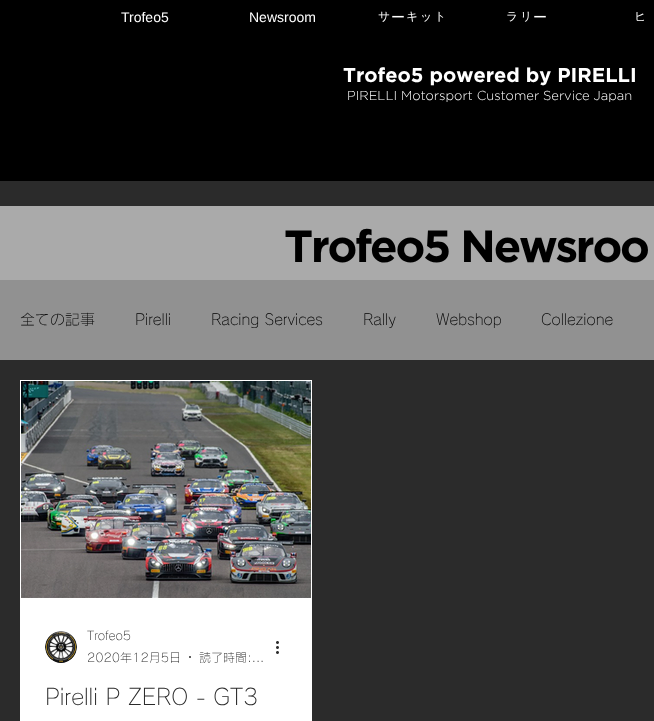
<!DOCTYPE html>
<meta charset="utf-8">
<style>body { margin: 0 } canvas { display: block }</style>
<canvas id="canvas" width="654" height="721"></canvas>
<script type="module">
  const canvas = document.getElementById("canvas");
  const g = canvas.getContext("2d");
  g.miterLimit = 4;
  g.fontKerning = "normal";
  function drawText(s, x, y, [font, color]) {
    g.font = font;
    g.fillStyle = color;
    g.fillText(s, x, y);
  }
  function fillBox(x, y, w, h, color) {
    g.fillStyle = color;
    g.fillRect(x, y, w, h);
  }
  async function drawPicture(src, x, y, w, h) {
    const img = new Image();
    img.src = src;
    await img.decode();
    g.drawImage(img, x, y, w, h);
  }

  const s1 = ["14px Liberation Sans", "#FFFFFF"];
  const s2 = ["14px Dotum", "#FFFFFF"];
  const s3 = ["500 14px WenQuanYi Zen Hei", "#FFFFFF"];
  const s4 = ["bold 20px Gotham", "#FFFFFF"];
  const s5 = ["300 13px Gotham", "#FFFFFF"];
  const s6 = ["bold 45px Gotham", "#000000"];
  const s7 = ["300 15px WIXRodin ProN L", "#000000"];
  const s8 = ["300 12px WIXRodin ProN L", "#2B2B2B"];
  const s9 = ["300 22px WIXRodin ProN L", "#2B2B2B"];

  fillBox(0, 0, 654, 721, "#AAAAAA");
  fillBox(0, 0, 654, 181, "#000000");
  drawText("Trofeo5", 121, 22, s1);
  drawText("Newsroom", 249, 22, s1);
  drawText("サ", 377, 22, s2);
  drawText("ー", 391, 22, s3);
  drawText("キット", 405, 22, s2);
  drawText("ラリ", 505, 22, s2);
  drawText("ー", 533, 22, s3);
  drawText("ヒ", 633, 22, s2);
  drawText("Trofeo5 powered by PIRELLI", 343, 82, s4);
  drawText("PIRELLI Motorsport Customer Service Japan", 347, 100, s5);
  fillBox(0, 181, 654, 25, "#2B2B2B");
  g.letterSpacing = "-2.25px";
  drawText("Trofeo5 Newsroo", 284, 262, s6);
  fillBox(0, 360, 654, 361, "#2B2B2B");
  fillBox(0, 280, 654, 80, "#919191");
  g.letterSpacing = "0px";
  drawText("全ての記事", 20, 325, s7);
  drawText("Pirelli", 135, 325, s7);
  drawText("Racing Services", 211, 325, s7);
  drawText("Rally", 363, 325, s7);
  drawText("Webshop", 436, 325, s7);
  drawText("Collezione", 541, 325, s7);
  g.strokeStyle = "#FFFFFF";
  g.strokeRect(20.5, 380.5, 291, 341);
  await drawPicture("pic1.png", 21, 381, 290, 217);
  fillBox(21, 598, 290, 123, "#FFFFFF");
  await drawPicture("pic2.png", 45, 631, 32, 32);
  drawText("Trofeo5", 87, 640, s8);
  drawText("2020年12月5日", 87, 662, s8);
  g.beginPath();
  g.arc(190, 657, 1, 0, Math.PI * 2);
  g.fill();
  drawText("読了時間:...", 199, 662, s8);
  await drawPicture("pic3.png", 276, 641, 3, 13);
  drawText("Pirelli P ZERO - GT3", 45, 705, s9);
</script>
